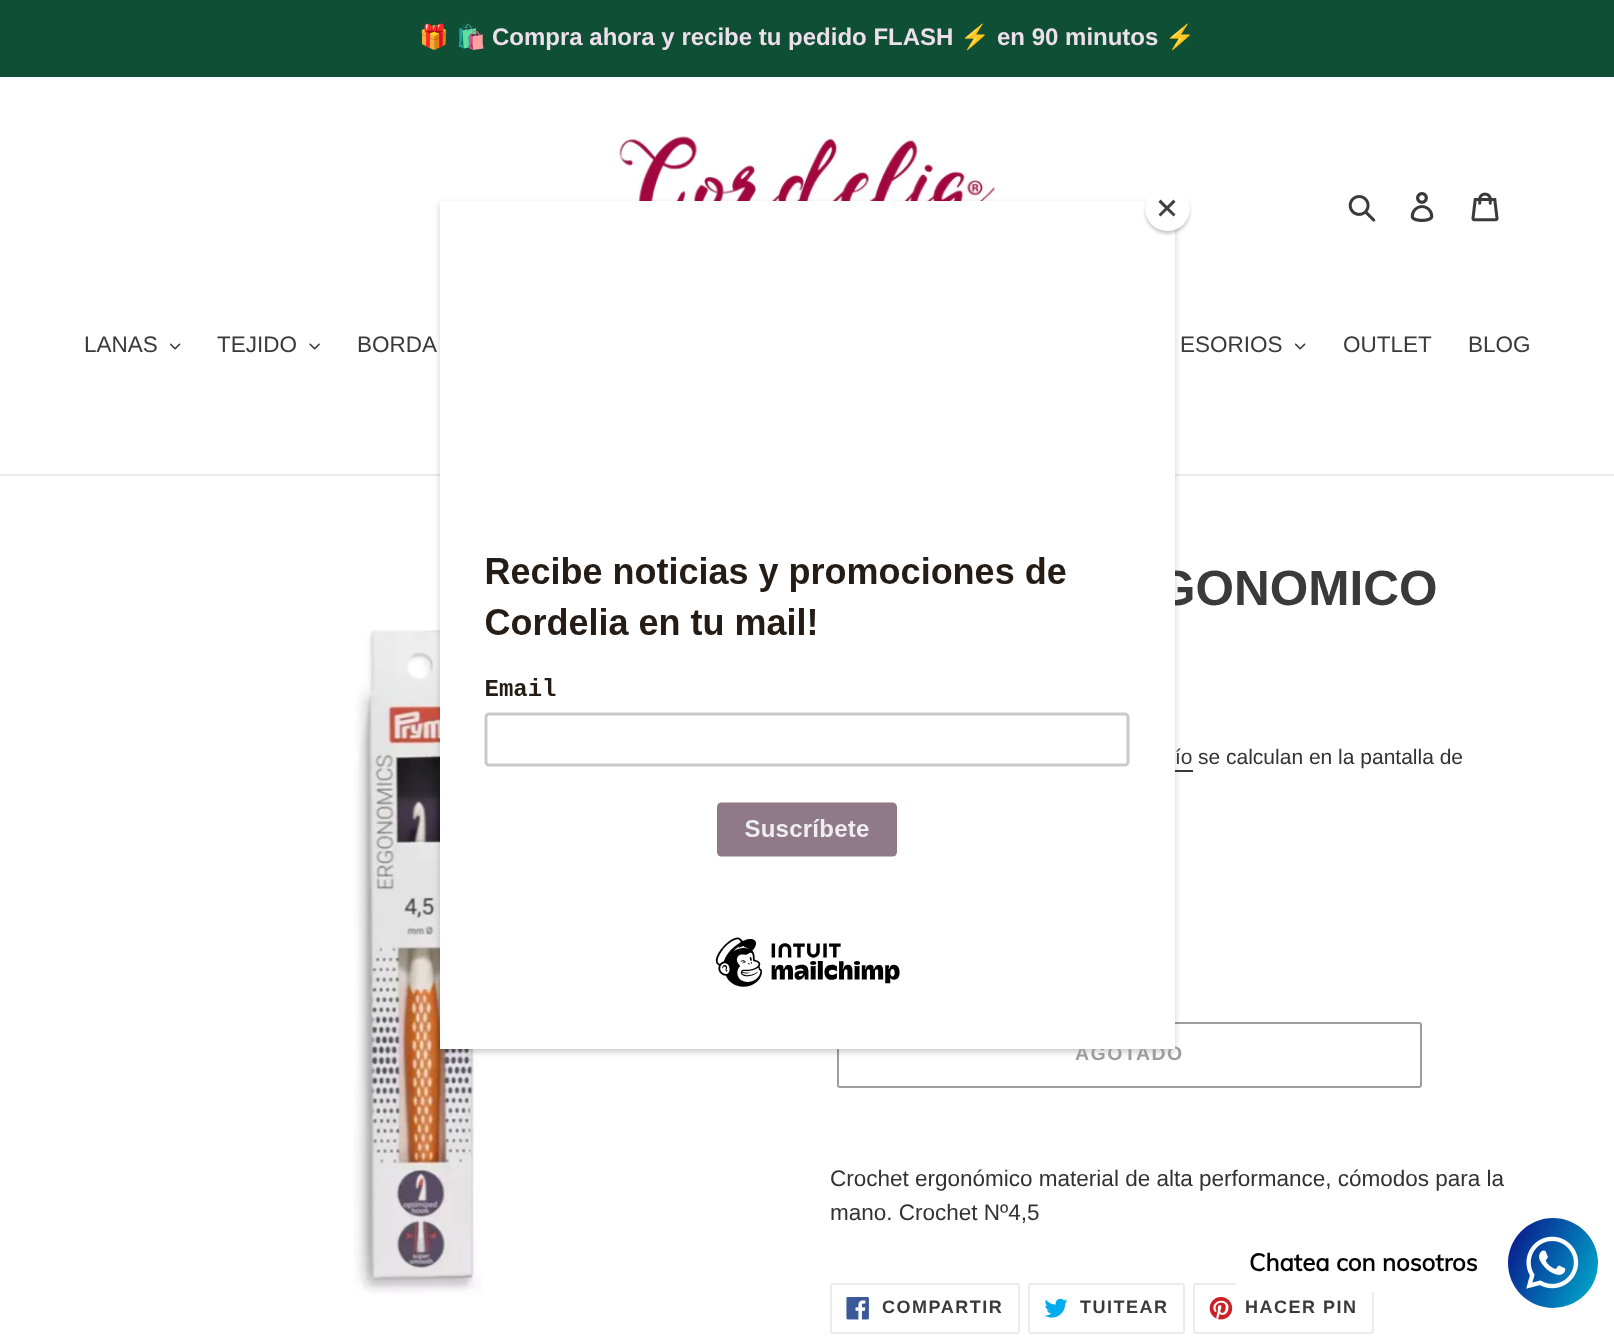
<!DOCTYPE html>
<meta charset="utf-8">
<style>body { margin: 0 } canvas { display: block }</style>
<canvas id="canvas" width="1614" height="1338"></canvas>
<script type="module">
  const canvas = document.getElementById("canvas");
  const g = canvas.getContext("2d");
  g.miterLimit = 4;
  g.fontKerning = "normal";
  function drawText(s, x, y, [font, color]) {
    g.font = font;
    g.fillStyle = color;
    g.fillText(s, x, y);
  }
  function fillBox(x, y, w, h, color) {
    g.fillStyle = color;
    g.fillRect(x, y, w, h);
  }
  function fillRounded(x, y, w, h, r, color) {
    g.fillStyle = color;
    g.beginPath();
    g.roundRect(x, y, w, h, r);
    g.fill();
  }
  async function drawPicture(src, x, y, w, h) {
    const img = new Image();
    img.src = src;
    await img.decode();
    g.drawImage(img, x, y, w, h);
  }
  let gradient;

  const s1 = ["bold 24px Noto Color Emoji", "#EDE0EA"];
  const s2 = ["bold 24px Liberation Sans", "#EDE0EA"];
  const s3 = ["22.5px Liberation Sans", "#3A3A3A"];
  const s4 = ["bold 49.5px Liberation Sans", "#3A3A3A"];
  const s5 = ["bold 19.5px Liberation Sans", "#9D9D9D"];
  const s6 = ["21px Liberation Sans", "#3A3A3A"];
  const s7 = ["21px Liberation Sans", "#333232"];
  const s8 = ["22.5px Liberation Sans", "#333232"];
  const s9 = ["bold 18px Liberation Sans", "#3A3A3A"];
  const s10 = ["bold 24px Muli", "#000000"];

  fillBox(0, 0, 1614, 1338, "#FFFFFF");
  fillBox(0, 0, 1614, 77, "#0E4F36");
  drawText("🎁", 419, 45, s1);
  drawText("🛍️", 456, 45, s1);
  drawText("Compra ahora y recibe tu pedido FLASH", 492, 45, s2);
  drawText("⚡️", 960, 45, s1);
  drawText("en 90 minutos", 997, 45, s2);
  drawText("⚡️", 1165, 45, s1);
  await drawPicture("pic1.png", 619, 136, 376, 65);
  await drawPicture("pic2.png", 1348, 195, 28, 27);
  await drawPicture("pic3.png", 1410, 192, 24, 30);
  await drawPicture("pic4.png", 1471, 192, 28, 30);
  fillBox(0, 474, 1614, 2, "#EBEBEB");
  drawText("LANAS", 84, 352, s3);
  await drawPicture("pic5.png", 170, 343, 11, 7);
  drawText("TEJIDO", 217, 352, s3);
  await drawPicture("pic6.png", 309, 343, 11, 7);
  drawText("BORDA", 357, 352, s3);
  drawText("ESORIOS", 1180, 352, s3);
  await drawPicture("pic5.png", 1295, 343, 11, 7);
  drawText("OUTLET", 1343, 352, s3);
  drawText("BLOG", 1468, 352, s3);
  await drawPicture("pic8.png", 353, 629, 129, 666);
  fillBox(1175, 770, 18, 2, "#3A3A3A");
  g.beginPath();
  g.roundRect(838, 1023, 583, 64, 2);
  g.strokeStyle = "#9D9D9D";
  g.lineWidth = 2;
  g.stroke();
  g.fillStyle = "rgba(0, 0, 0, 0.2)";
  g.filter = "blur(3px)";
  g.beginPath();
  g.rect(440, 204, 735, 848);
  g.fill();
  g.filter = "none";
  drawText("GONOMICO", 1157, 605, s4);
  g.letterSpacing = "1.5px";
  drawText("AGOTADO", 1075, 1060, s5);
  await drawPicture("pic7.png", 440, 201, 735, 848);
  g.fillStyle = "rgba(0, 0, 0, 0.2)";
  g.filter = "blur(1.5px)";
  g.beginPath();
  g.roundRect(1145, 189, 45, 45, 22.5);
  g.fill();
  g.filter = "none";
  g.fillStyle = "#FFFFFF";
  g.beginPath();
  g.arc(1167.5, 208.5, 22.5, 0, Math.PI * 2);
  g.fill();
  g.fillStyle = "#414141";
  g.beginPath();
  g.moveTo(1173.5, 199.5);
  g.lineTo(1175.5, 202);
  g.lineTo(1160.5, 216.5);
  g.lineTo(1158.5, 214.5);
  g.closePath();
  g.fill();
  g.beginPath();
  g.moveTo(1158.5, 202);
  g.lineTo(1160.5, 199.5);
  g.lineTo(1175.5, 214.5);
  g.lineTo(1173.5, 216.5);
  g.closePath();
  g.fill();
  g.letterSpacing = "0px";
  drawText("ío", 1175, 764, s6);
  drawText("se calculan en la pantalla de", 1198, 764, s7);
  drawText("Crochet ergonómico material de alta performance, cómodos para la", 830, 1186, s8);
  drawText("mano. Crochet Nº4,5", 830, 1220, s8);
  g.beginPath();
  g.roundRect(831, 1284, 188, 49, 2);
  g.strokeStyle = "#EBEBEB";
  g.stroke();
  await drawPicture("pic9.png", 846, 1297, 23, 23);
  g.letterSpacing = "1.5px";
  drawText("COMPARTIR", 882, 1313, s9);
  g.beginPath();
  g.roundRect(1029, 1284, 155, 49, 2);
  g.stroke();
  await drawPicture("pic10.png", 1044, 1298, 24, 20);
  drawText("TUITEAR", 1080, 1313, s9);
  g.beginPath();
  g.roundRect(1194, 1284, 179, 49, 2);
  g.stroke();
  await drawPicture("pic11.png", 1209, 1297, 24, 23);
  drawText("HACER PIN", 1245, 1313, s9);
  gradient = g.createLinearGradient(1498, 1238, 1607, 1288);
  gradient.addColorStop(0, "#0A0E88");
  gradient.addColorStop(1, "#00B1CE");
  g.fillStyle = gradient;
  g.beginPath();
  g.arc(1553, 1263, 45, 0, Math.PI * 2);
  g.fill();
  fillRounded(1235, 1233, 258, 59, 12, "#FFFFFF");
  g.letterSpacing = "0px";
  drawText("Chatea con nosotros", 1249, 1271, s10);
  await drawPicture("pic12.png", 1526, 1236, 53, 53);
</script>
